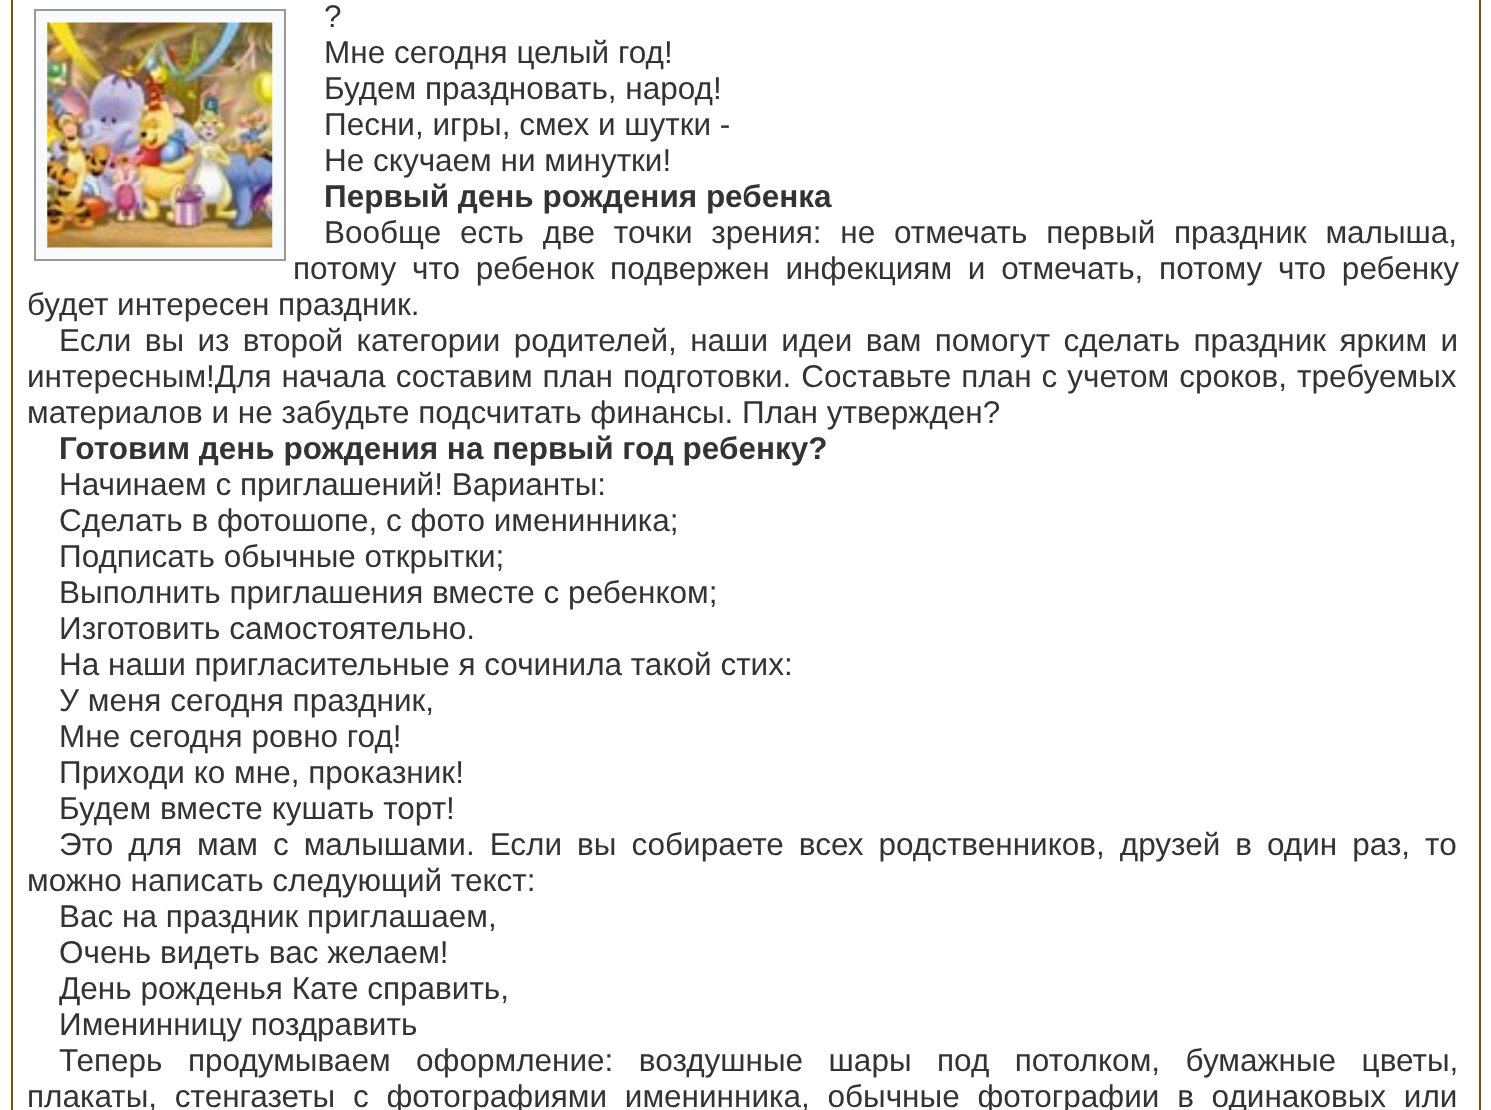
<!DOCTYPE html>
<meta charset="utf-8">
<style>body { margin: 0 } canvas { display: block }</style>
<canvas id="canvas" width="1491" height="1110"></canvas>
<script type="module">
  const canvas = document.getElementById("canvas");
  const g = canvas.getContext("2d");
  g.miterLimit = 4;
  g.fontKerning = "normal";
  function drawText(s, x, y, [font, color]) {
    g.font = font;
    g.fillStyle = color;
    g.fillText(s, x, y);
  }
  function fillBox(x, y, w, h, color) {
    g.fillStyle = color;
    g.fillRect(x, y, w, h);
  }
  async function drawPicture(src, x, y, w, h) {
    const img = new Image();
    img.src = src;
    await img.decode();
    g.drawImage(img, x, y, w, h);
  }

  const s1 = ["31.5px Liberation Sans", "#333333"];
  const s2 = ["bold 31.5px Liberation Sans", "#333333"];

  fillBox(0, 0, 1491, 1110, "#FFFFFF");
  g.strokeStyle = "#884F08";
  g.lineWidth = 2;
  g.strokeRect(12, -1, 1468, 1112);
  g.fillStyle = "#F8FAFC";
  g.beginPath();
  g.rect(35, 10, 250, 250);
  g.fill();
  g.strokeStyle = "#999999";
  g.stroke();
  await drawPicture("pic1.png", 47, 22, 226, 226);
  drawText("?", 324, 27, s1);
  drawText("Мне сегодня целый год!", 324, 63, s1);
  drawText("Будем праздновать, народ!", 324, 99, s1);
  drawText("Песни, игры, смех и шутки -", 324, 135, s1);
  drawText("Не скучаем ни минутки!", 324, 171, s1);
  drawText("Первый день рождения ребенка", 324, 207, s2);
  g.wordSpacing = "10px";
  drawText("Вообще есть две точки зрения: не отмечать первый праздник малыша,", 324, 243, s1);
  g.wordSpacing = "7px";
  drawText("потому что ребенок подвержен инфекциям и отмечать, потому что ребенку", 293, 279, s1);
  g.wordSpacing = "0px";
  drawText("будет интересен праздник.", 27, 315, s1);
  g.wordSpacing = "4.6px";
  drawText("Если вы из второй категории родителей, наши идеи вам помогут сделать праздник ярким и", 59, 351, s1);
  g.wordSpacing = "1.25px";
  drawText("интересным!Для начала составим план подготовки. Составьте план с учетом сроков, требуемых", 27, 387, s1);
  g.wordSpacing = "0px";
  drawText("материалов и не забудьте подсчитать финансы. План утвержден?", 27, 423, s1);
  drawText("Готовим день рождения на первый год ребенку?", 59, 459, s2);
  drawText("Начинаем с приглашений! Варианты:", 59, 495, s1);
  drawText("Сделать в фотошопе, с фото именинника;", 59, 531, s1);
  drawText("Подписать обычные открытки;", 59, 567, s1);
  drawText("Выполнить приглашения вместе с ребенком;", 59, 603, s1);
  drawText("Изготовить самостоятельно.", 59, 639, s1);
  drawText("На наши пригласительные я сочинила такой стих:", 59, 675, s1);
  drawText("У меня сегодня праздник,", 59, 711, s1);
  drawText("Мне сегодня ровно год!", 59, 747, s1);
  drawText("Приходи ко мне, проказник!", 59, 783, s1);
  drawText("Будем вместе кушать торт!", 59, 819, s1);
  g.wordSpacing = "6.25px";
  drawText("Это для мам с малышами. Если вы собираете всех родственников, друзей в один раз, то", 59, 855, s1);
  g.wordSpacing = "0px";
  drawText("можно написать следующий текст:", 27, 891, s1);
  drawText("Вас на праздник приглашаем,", 59, 927, s1);
  drawText("Очень видеть вас желаем!", 59, 963, s1);
  drawText("День рожденья Кате справить,", 59, 999, s1);
  drawText("Именинницу поздравить", 59, 1035, s1);
  g.wordSpacing = "16.75px";
  drawText("Теперь продумываем оформление: воздушные шары под потолком, бумажные цветы,", 59, 1071, s1);
  g.wordSpacing = "9px";
  drawText("плакаты, стенгазеты с фотографиями именинника, обычные фотографии в одинаковых или", 27, 1107, s1);
</script>
